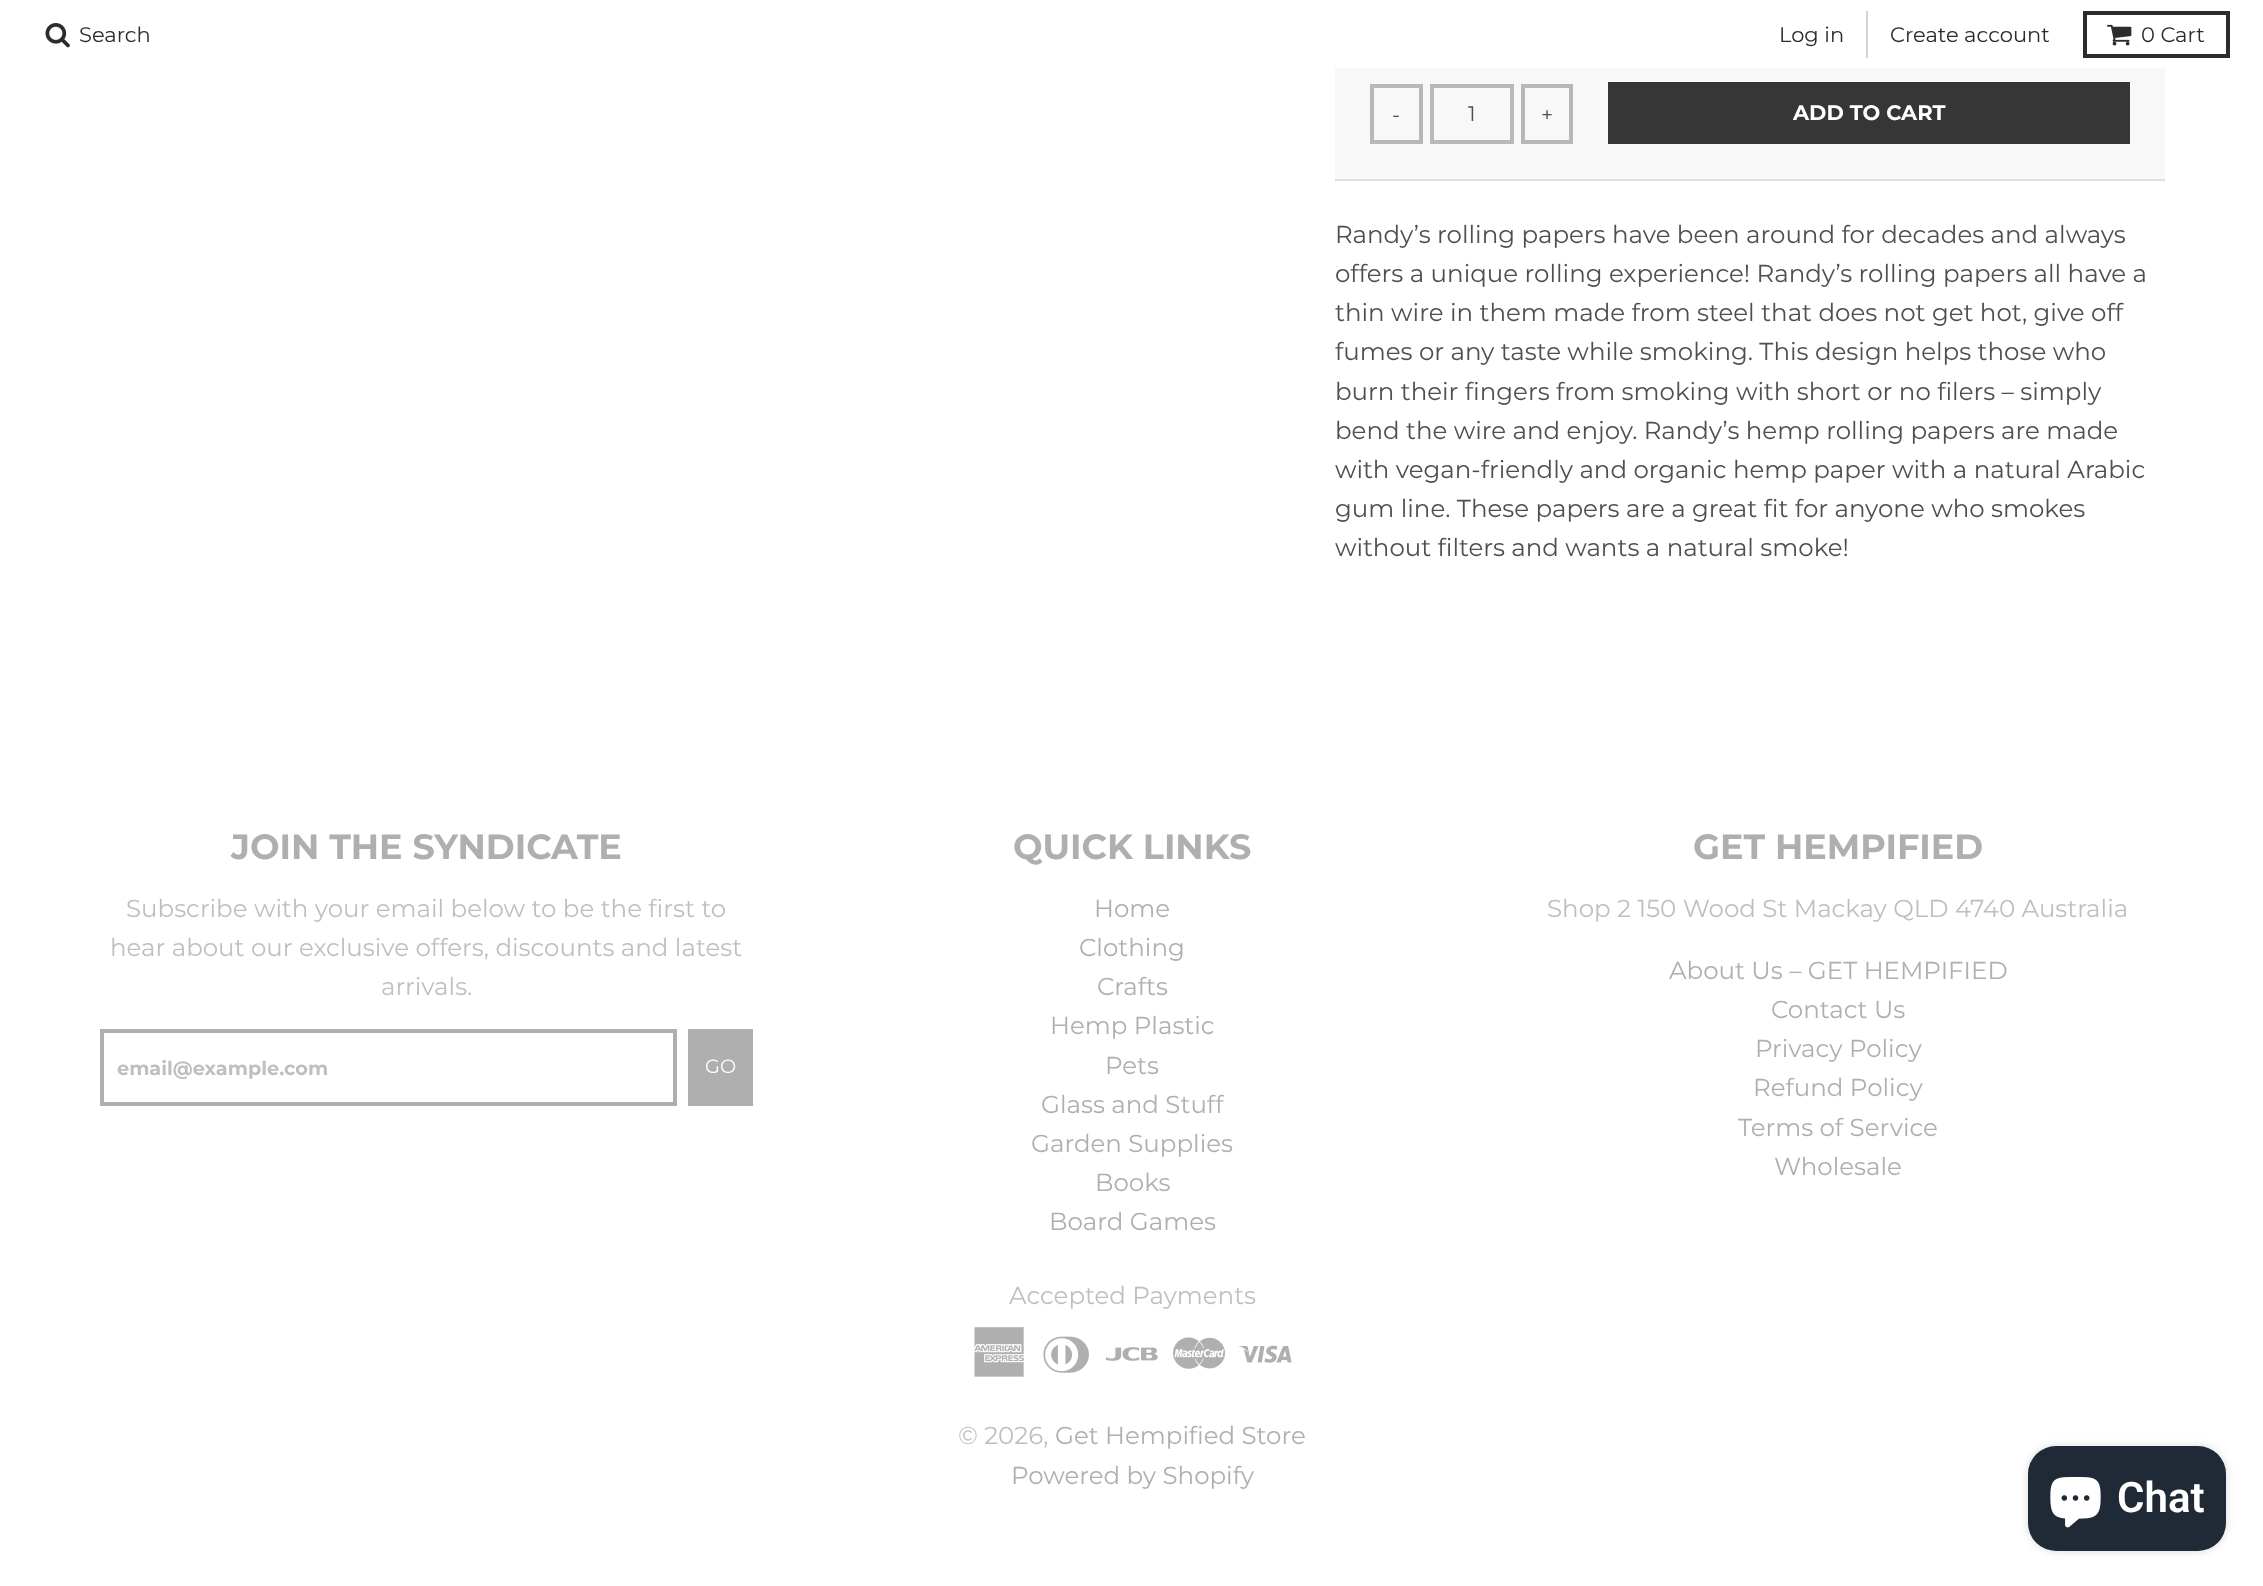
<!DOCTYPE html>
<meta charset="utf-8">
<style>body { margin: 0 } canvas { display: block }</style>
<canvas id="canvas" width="2263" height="1586"></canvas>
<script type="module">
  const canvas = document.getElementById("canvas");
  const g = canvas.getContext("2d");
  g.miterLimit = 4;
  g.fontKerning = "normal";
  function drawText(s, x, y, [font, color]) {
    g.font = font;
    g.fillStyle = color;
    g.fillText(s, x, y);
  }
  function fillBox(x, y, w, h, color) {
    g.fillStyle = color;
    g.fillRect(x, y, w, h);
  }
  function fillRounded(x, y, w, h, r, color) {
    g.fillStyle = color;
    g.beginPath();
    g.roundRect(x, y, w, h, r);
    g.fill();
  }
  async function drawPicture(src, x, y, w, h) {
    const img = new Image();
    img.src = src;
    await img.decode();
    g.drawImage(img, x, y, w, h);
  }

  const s1 = ["21px Montserrat", "#2C2C2C"];
  const s2 = ["21px Montserrat", "#4F4F4F"];
  const s3 = ["bold 21px Montserrat", "#FFFFFF"];
  const s4 = ["24.5px Montserrat", "#4F4F4F"];
  const s5 = ["bold 35px Montserrat", "#AFAFAF"];
  const s6 = ["24.5px Montserrat", "#BFBFBF"];
  const s7 = ["bold 19.25px Montserrat", "#BFBFBF"];
  const s8 = ["19.25px Montserrat", "#FFFFFF"];
  const s9 = ["24.5px Montserrat", "#AFAFAF"];
  const s10 = ["600 42px Roboto", "#FFFFFF"];

  fillBox(0, 0, 2263, 1586, "#FFFFFF");
  await drawPicture("pic1.png", 45, 23, 25, 25);
  drawText("Search", 79, 42, s1);
  fillBox(1866, 11, 2, 47, "#D4D4D4");
  drawText("Log in", 1779, 42, s1);
  drawText("Create account", 1890, 42, s1);
  g.strokeStyle = "#2C2C2C";
  g.lineWidth = 4;
  g.strokeRect(2085, 13, 143, 43);
  await drawPicture("pic2.png", 2107, 24, 25, 22);
  drawText("0 Cart", 2141, 42, s1);
  fillBox(1335, 68, 830, 111, "#F8F8F8");
  fillBox(1335, 179, 830, 2, "#DFDFDF");
  g.strokeStyle = "#B8B8B8";
  g.strokeRect(1372, 86, 49, 56);
  drawText("-", 1392, 122, s2);
  g.strokeRect(1432, 86, 80, 56);
  drawText("1", 1468, 121, s2);
  g.strokeRect(1523, 86, 48, 56);
  drawText("+", 1541, 122, s2);
  fillBox(1608, 82, 522, 62, "#363636");
  drawText("ADD TO CART", 1793, 120, s3);
  drawText("Randy’s rolling papers have been around for decades and always", 1335, 243, s4);
  drawText("offers a unique rolling experience! Randy’s rolling papers all have a", 1335, 282, s4);
  drawText("thin wire in them made from steel that does not get hot, give off", 1335, 321, s4);
  drawText("fumes or any taste while smoking. This design helps those who", 1335, 360, s4);
  drawText("burn their fingers from smoking with short or no filers – simply", 1335, 400, s4);
  drawText("bend the wire and enjoy. Randy’s hemp rolling papers are made", 1335, 439, s4);
  drawText("with vegan-friendly and organic hemp paper with a natural Arabic", 1335, 478, s4);
  drawText("gum line. These papers are a great fit for anyone who smokes", 1335, 517, s4);
  drawText("without filters and wants a natural smoke!", 1335, 556, s4);
  drawText("JOIN THE SYNDICATE", 231, 859, s5);
  drawText("Subscribe with your email below to be the first to", 126, 917, s6);
  drawText("hear about our exclusive offers, discounts and latest", 110, 956, s6);
  drawText("arrivals.", 381, 995, s6);
  g.strokeStyle = "#AFAFAF";
  g.strokeRect(102, 1031, 573, 73);
  drawText("email@example.com", 117, 1075, s7);
  fillBox(688, 1029, 65, 77, "#AFAFAF");
  drawText("GO", 705, 1073, s8);
  drawText("QUICK LINKS", 1013, 859, s5);
  drawText("Home", 1094, 917, s9);
  drawText("Clothing", 1079, 956, s9);
  drawText("Crafts", 1097, 995, s9);
  drawText("Hemp Plastic", 1050, 1034, s9);
  drawText("Pets", 1105, 1074, s9);
  drawText("Glass and Stuff", 1041, 1113, s9);
  drawText("Garden Supplies", 1031, 1152, s9);
  drawText("Books", 1095, 1191, s9);
  drawText("Board Games", 1049, 1230, s9);
  drawText("GET HEMPIFIED", 1693, 859, s5);
  drawText("Shop 2 150 Wood St Mackay QLD 4740 Australia", 1547, 917, s6);
  drawText("About Us – GET HEMPIFIED", 1669, 979, s9);
  drawText("Contact Us", 1771, 1018, s9);
  drawText("Privacy Policy", 1755, 1057, s9);
  drawText("Refund Policy", 1753, 1096, s9);
  drawText("Terms of Service", 1738, 1136, s9);
  drawText("Wholesale", 1774, 1175, s9);
  drawText("Accepted Payments", 1009, 1304, s6);
  await drawPicture("pic3.png", 974, 1327, 50, 50);
  await drawPicture("pic4.png", 1043, 1336, 46, 37);
  await drawPicture("pic5.png", 1106, 1347, 52, 14);
  await drawPicture("pic6.png", 1173, 1337, 52, 32);
  await drawPicture("pic7.png", 1239, 1345, 53, 18);
  drawText("© 2026,", 958, 1444, s6);
  drawText("Get Hempified Store", 1055, 1444, s9);
  drawText("Powered by Shopify", 1011, 1484, s9);
  g.fillStyle = "rgba(0, 0, 0, 0.15)";
  g.filter = "blur(4.5px)";
  g.beginPath();
  g.roundRect(2028, 1446, 198, 105, 28);
  g.fill();
  g.filter = "none";
  fillRounded(2028, 1446, 198, 105, 28, "#202A36");
  await drawPicture("pic8.png", 2050, 1477, 51, 51);
  drawText("Chat", 2117, 1512, s10);
</script>
